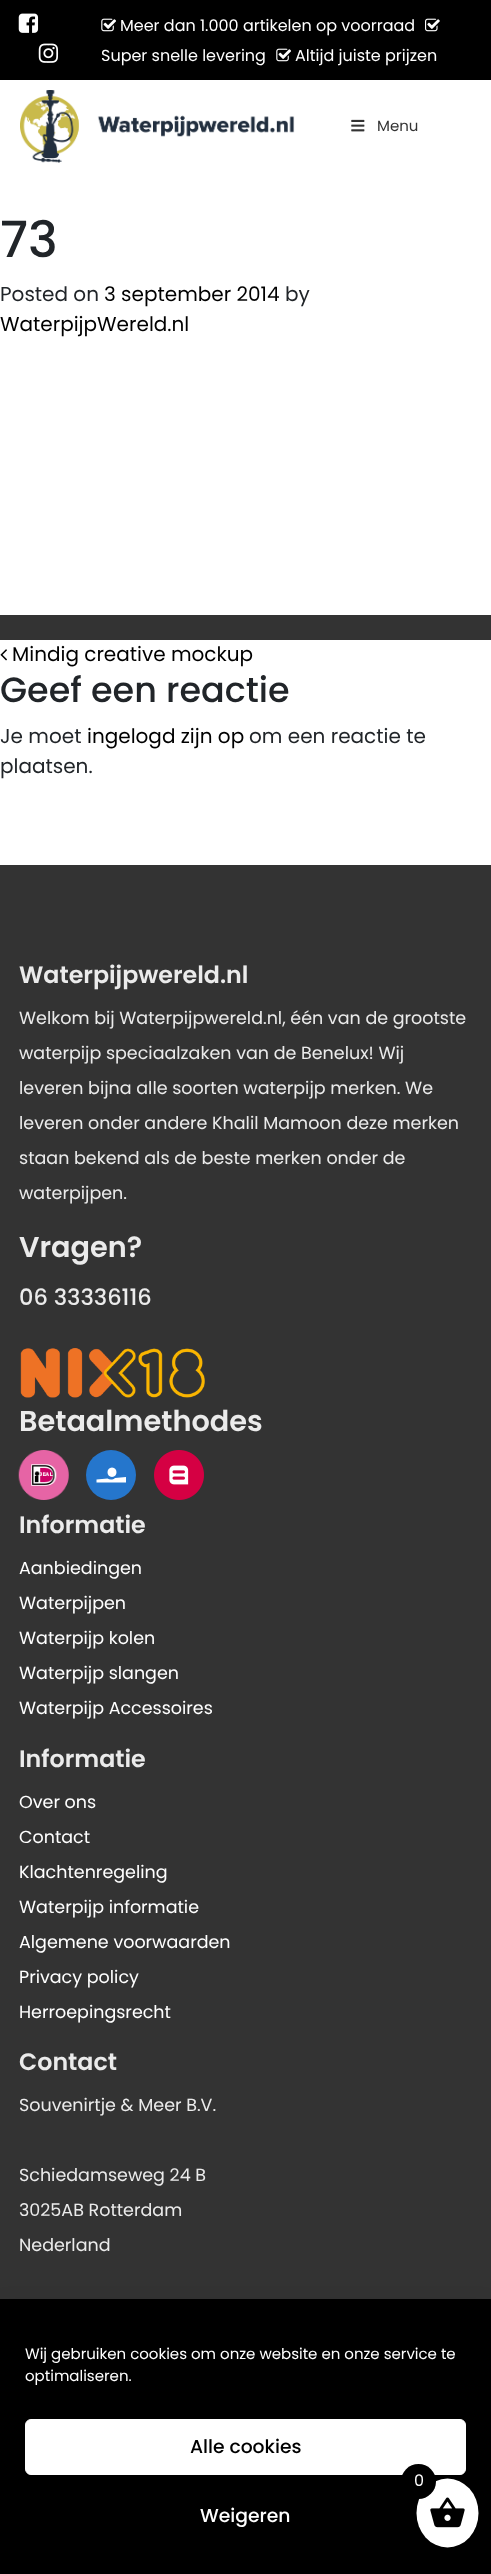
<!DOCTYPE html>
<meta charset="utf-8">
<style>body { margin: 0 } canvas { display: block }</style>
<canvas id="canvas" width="491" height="2574"></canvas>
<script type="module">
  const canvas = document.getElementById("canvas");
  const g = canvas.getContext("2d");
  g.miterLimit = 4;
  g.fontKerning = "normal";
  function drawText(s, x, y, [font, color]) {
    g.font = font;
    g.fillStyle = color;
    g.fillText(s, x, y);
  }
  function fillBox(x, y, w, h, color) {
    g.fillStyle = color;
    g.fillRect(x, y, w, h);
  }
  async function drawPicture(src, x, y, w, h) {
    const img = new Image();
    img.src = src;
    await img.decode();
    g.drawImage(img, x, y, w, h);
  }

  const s1 = ["16px Poppins", "#FFFFFF"];
  const s2 = ["15px Poppins", "#333333"];
  const s3 = ["500 50px Poppins", "#212529"];
  const s4 = ["20px Poppins", "#212529"];
  const s5 = ["20px Poppins", "#000000"];
  const s6 = ["500 35px Poppins", "#212529"];
  const s7 = ["600 23.75px Poppins", "#EBEBEB"];
  const s8 = ["17.5px Poppins", "#EBEBEB"];
  const s9 = ["600 28.75px Poppins", "#EBEBEB"];
  const s10 = ["500 22.5px Poppins", "#EBEBEB"];
  const s11 = ["17.5px Poppins", "#FFFFFF"];
  const s12 = ["15px Poppins", "#FFFFFF"];
  const s13 = ["500 18.75px Poppins", "#000000"];
  const s14 = ["500 18.75px Poppins", "#FFFFFF"];

  fillBox(0, 0, 491, 2574, "#FFFFFF");
  fillBox(0, 0, 491, 80, "#000000");
  await drawPicture("pic1.png", 18, 13, 21, 20);
  await drawPicture("pic2.png", 38, 43, 21, 20);
  await drawPicture("pic3.png", 101, 18, 15, 14);
  drawText("Meer dan 1.000 artikelen op voorraad", 120, 31, s1);
  await drawPicture("pic4.png", 425, 18, 15, 14);
  drawText("Super snelle levering", 101, 61, s1);
  await drawPicture("pic3.png", 276, 48, 15, 14);
  drawText("Altijd juiste prijzen", 295, 61, s1);
  await drawPicture("pic5.png", 20, 90, 275, 73);
  await drawPicture("pic6.png", 351, 119, 14, 13);
  drawText("Menu", 377, 131, s2);
  drawText("73", 0, 257, s3);
  drawText("Posted on", 0, 301, s4);
  drawText("3 september 2014", 104, 301, s5);
  drawText("by", 285, 301, s4);
  drawText("WaterpijpWereld.nl", 0, 331, s5);
  fillBox(0, 615, 491, 25, "#333333");
  await drawPicture("pic7.png", 0, 649, 7, 12);
  drawText("Mindig creative mockup", 12, 661, s5);
  drawText("Geef een reactie", 0, 702, s6);
  drawText("Je moet", 0, 743, s4);
  drawText("ingelogd zijn op", 87, 743, s5);
  drawText("om een reactie te", 249, 743, s4);
  drawText("plaatsen.", 0, 773, s4);
  fillBox(0, 865, 491, 1434, "#333333");
  drawText("Waterpijpwereld.nl", 19, 983, s7);
  drawText("Welkom bij Waterpijpwereld.nl, één van de grootste", 19, 1024, s8);
  drawText("waterpijp speciaalzaken van de Benelux! Wij", 19, 1059, s8);
  drawText("leveren bijna alle soorten waterpijp merken. We", 19, 1094, s8);
  drawText("leveren onder andere Khalil Mamoon deze merken", 19, 1129, s8);
  drawText("staan bekend als de beste merken onder de", 19, 1164, s8);
  drawText("waterpijpen.", 19, 1199, s8);
  drawText("Vragen?", 19, 1257, s9);
  drawText("06 33336116", 19, 1305, s10);
  await drawPicture("pic8.png", 20, 1348, 185, 50);
  drawText("Betaalmethodes", 19, 1431, s9);
  await drawPicture("pic9.png", 18, 1450, 51, 50);
  g.fillStyle = "#2576CC";
  g.beginPath();
  g.arc(111, 1475, 25, 0, Math.PI * 2);
  g.fill();
  await drawPicture("pic10.png", 154, 1450, 50, 50);
  g.fillStyle = "#FFFFFF";
  g.beginPath();
  g.moveTo(107.5, 1478.5);
  g.bezierCurveTo(109.5, 1480, 113, 1480, 115, 1478);
  g.lineTo(126, 1477);
  g.lineTo(126, 1482.5);
  g.lineTo(96.5, 1482.5);
  g.lineTo(96.5, 1479.5);
  g.closePath();
  g.moveTo(112, 1477);
  g.bezierCurveTo(106, 1477, 106, 1467.5, 112, 1467.5);
  g.bezierCurveTo(118, 1467.5, 118, 1477, 112, 1477);
  g.closePath();
  g.fill("evenodd");
  drawText("Informatie", 19, 1533, s7);
  drawText("Aanbiedingen", 19, 1574, s11);
  drawText("Waterpijpen", 19, 1609, s11);
  drawText("Waterpijp kolen", 19, 1644, s11);
  drawText("Waterpijp slangen", 19, 1679, s11);
  drawText("Waterpijp Accessoires", 19, 1714, s11);
  drawText("Informatie", 19, 1767, s7);
  drawText("Over ons", 19, 1808, s11);
  drawText("Contact", 19, 1843, s11);
  drawText("Klachtenregeling", 19, 1878, s11);
  drawText("Waterpijp informatie", 19, 1913, s11);
  drawText("Algemene voorwaarden", 19, 1948, s11);
  drawText("Privacy policy", 19, 1983, s11);
  drawText("Herroepingsrecht", 19, 2018, s11);
  drawText("Contact", 19, 2070, s7);
  drawText("Souvenirtje & Meer B.V.", 19, 2111, s8);
  drawText("Schiedamseweg 24 B", 19, 2181, s8);
  drawText("3025AB Rotterdam", 19, 2216, s8);
  drawText("Nederland", 19, 2251, s8);
  g.fillStyle = "rgba(0, 0, 0, 0.19)";
  g.filter = "blur(12.5px)";
  g.beginPath();
  g.rect(0, 2311, 491, 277);
  g.fill();
  g.filter = "none";
  fillBox(0, 2299, 491, 275, "#000000");
  drawText("Wij gebruiken cookies om onze website en onze service te", 25, 2359, s12);
  drawText("optimaliseren.", 25, 2381, s12);
  g.beginPath();
  g.roundRect(25.5, 2419.5, 440, 55, 5.5);
  g.fill();
  g.strokeStyle = "#FFFFFF";
  g.stroke();
  drawText("Alle cookies", 190, 2453, s13);
  drawText("Weigeren", 200, 2522, s14);
  g.beginPath();
  g.ellipse(447.5, 2513, 31, 34.5, 0, 0, Math.PI * 2);
  g.fill();
  g.fillStyle = "#000000";
  g.beginPath();
  g.arc(418.5, 2481.5, 17.5, 0, Math.PI * 2);
  g.fill();
  drawText("0", 414, 2486, s1);
  await drawPicture("pic11.png", 430, 2497, 35, 31);
</script>
